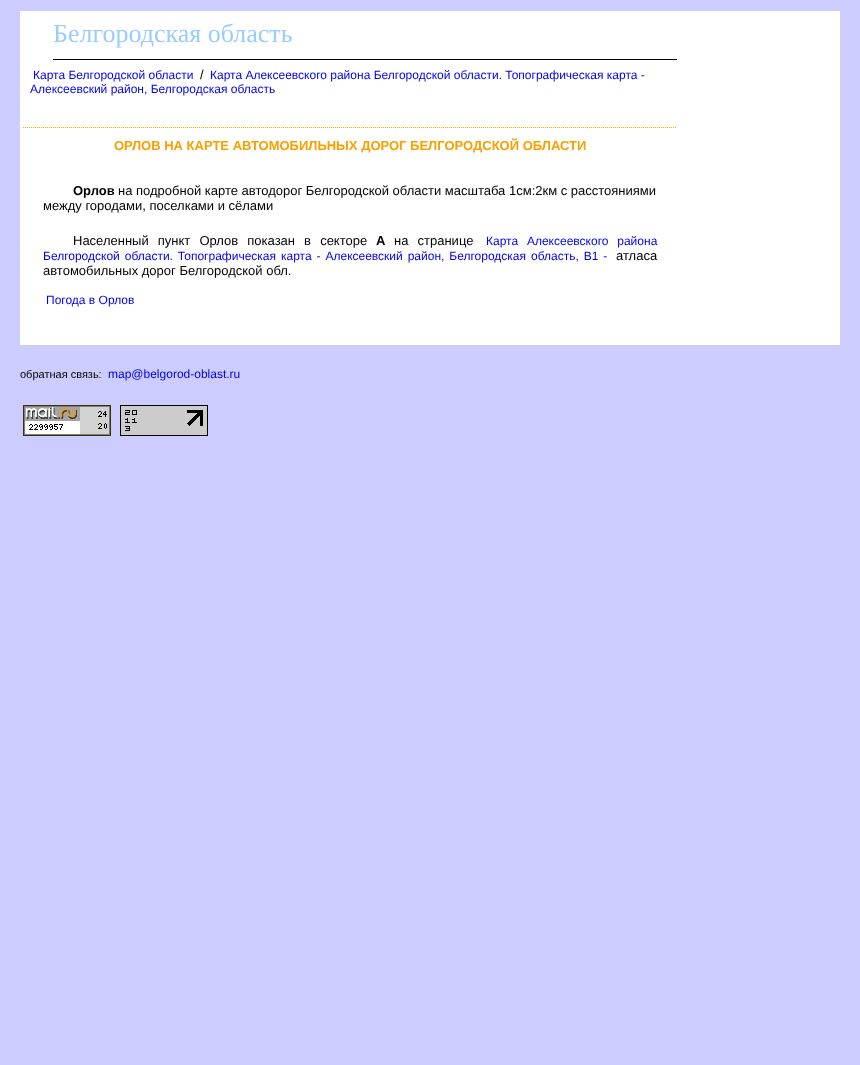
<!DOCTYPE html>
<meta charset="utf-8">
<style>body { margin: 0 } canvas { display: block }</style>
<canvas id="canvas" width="860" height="1065"></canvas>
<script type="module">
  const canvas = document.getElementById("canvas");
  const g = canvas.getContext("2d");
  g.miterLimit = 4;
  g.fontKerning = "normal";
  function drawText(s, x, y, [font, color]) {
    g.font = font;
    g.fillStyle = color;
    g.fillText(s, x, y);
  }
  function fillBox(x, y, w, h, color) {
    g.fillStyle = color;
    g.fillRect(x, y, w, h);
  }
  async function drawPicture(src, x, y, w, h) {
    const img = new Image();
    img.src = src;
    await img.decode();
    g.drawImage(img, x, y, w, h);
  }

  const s1 = ["26px Liberation Serif", "#99CCFF"];
  const s2 = ["12px Liberation Sans", "#0000EE"];
  const s3 = ["13px Liberation Sans", "#000000"];
  const s4 = ["bold 13px Liberation Sans", "#F9A000"];
  const s5 = ["bold 13px Liberation Sans", "#000000"];
  const s6 = ["11px Liberation Sans", "#000000"];

  fillBox(0, 0, 860, 1065, "#CCCCFF");
  fillBox(20, 11, 820, 334, "#FFFFFF");
  fillBox(53, 59, 624, 1, "#000000");
  drawText("Белгородская область", 53, 42, s1);
  drawText("Карта Белгородской области", 33, 79, s2);
  drawText("/", 200, 79, s3);
  drawText("Карта Алексеевского района Белгородской области. Топографическая карта -", 210, 79, s2);
  drawText("Алексеевский район, Белгородская область", 30, 93, s2);
  g.beginPath();
  g.moveTo(23, 127.5);
  g.lineTo(677, 127.5);
  g.strokeStyle = "#FFA500";
  g.setLineDash([1, 1]);
  g.stroke();
  drawText("ОРЛОВ НА КАРТЕ АВТОМОБИЛЬНЫХ ДОРОГ БЕЛГОРОДСКОЙ ОБЛАСТИ", 114, 150, s4);
  drawText("Орлов", 73, 195, s5);
  drawText("на подробной карте автодорог Белгородской области масштаба 1см:2км с расстояниями", 118, 195, s3);
  drawText("между городами, поселками и сёлами", 43, 210, s3);
  g.wordSpacing = "5.5px";
  drawText("Населенный пункт Орлов показан в секторе", 73, 245, s3);
  g.wordSpacing = "0px";
  drawText("А", 376, 245, s5);
  g.wordSpacing = "5.5px";
  drawText("на странице", 394, 245, s3);
  drawText("Карта Алексеевского района", 486, 245, s2);
  g.wordSpacing = "1.6px";
  drawText("Белгородской области. Топографическая карта - Алексеевский район, Белгородская область, B1 -", 43, 260, s2);
  g.wordSpacing = "0px";
  drawText("атласа", 616, 260, s3);
  drawText("автомобильных дорог Белгородской обл.", 43, 275, s3);
  drawText("Погода в Орлов", 46, 304, s2);
  drawText("обратная связь:", 20, 378, s6);
  drawText("map@belgorod-oblast.ru", 108, 378, s2);
  await drawPicture("pic1.png", 23, 405, 88, 31);
  await drawPicture("pic2.png", 120, 405, 88, 31);
</script>
